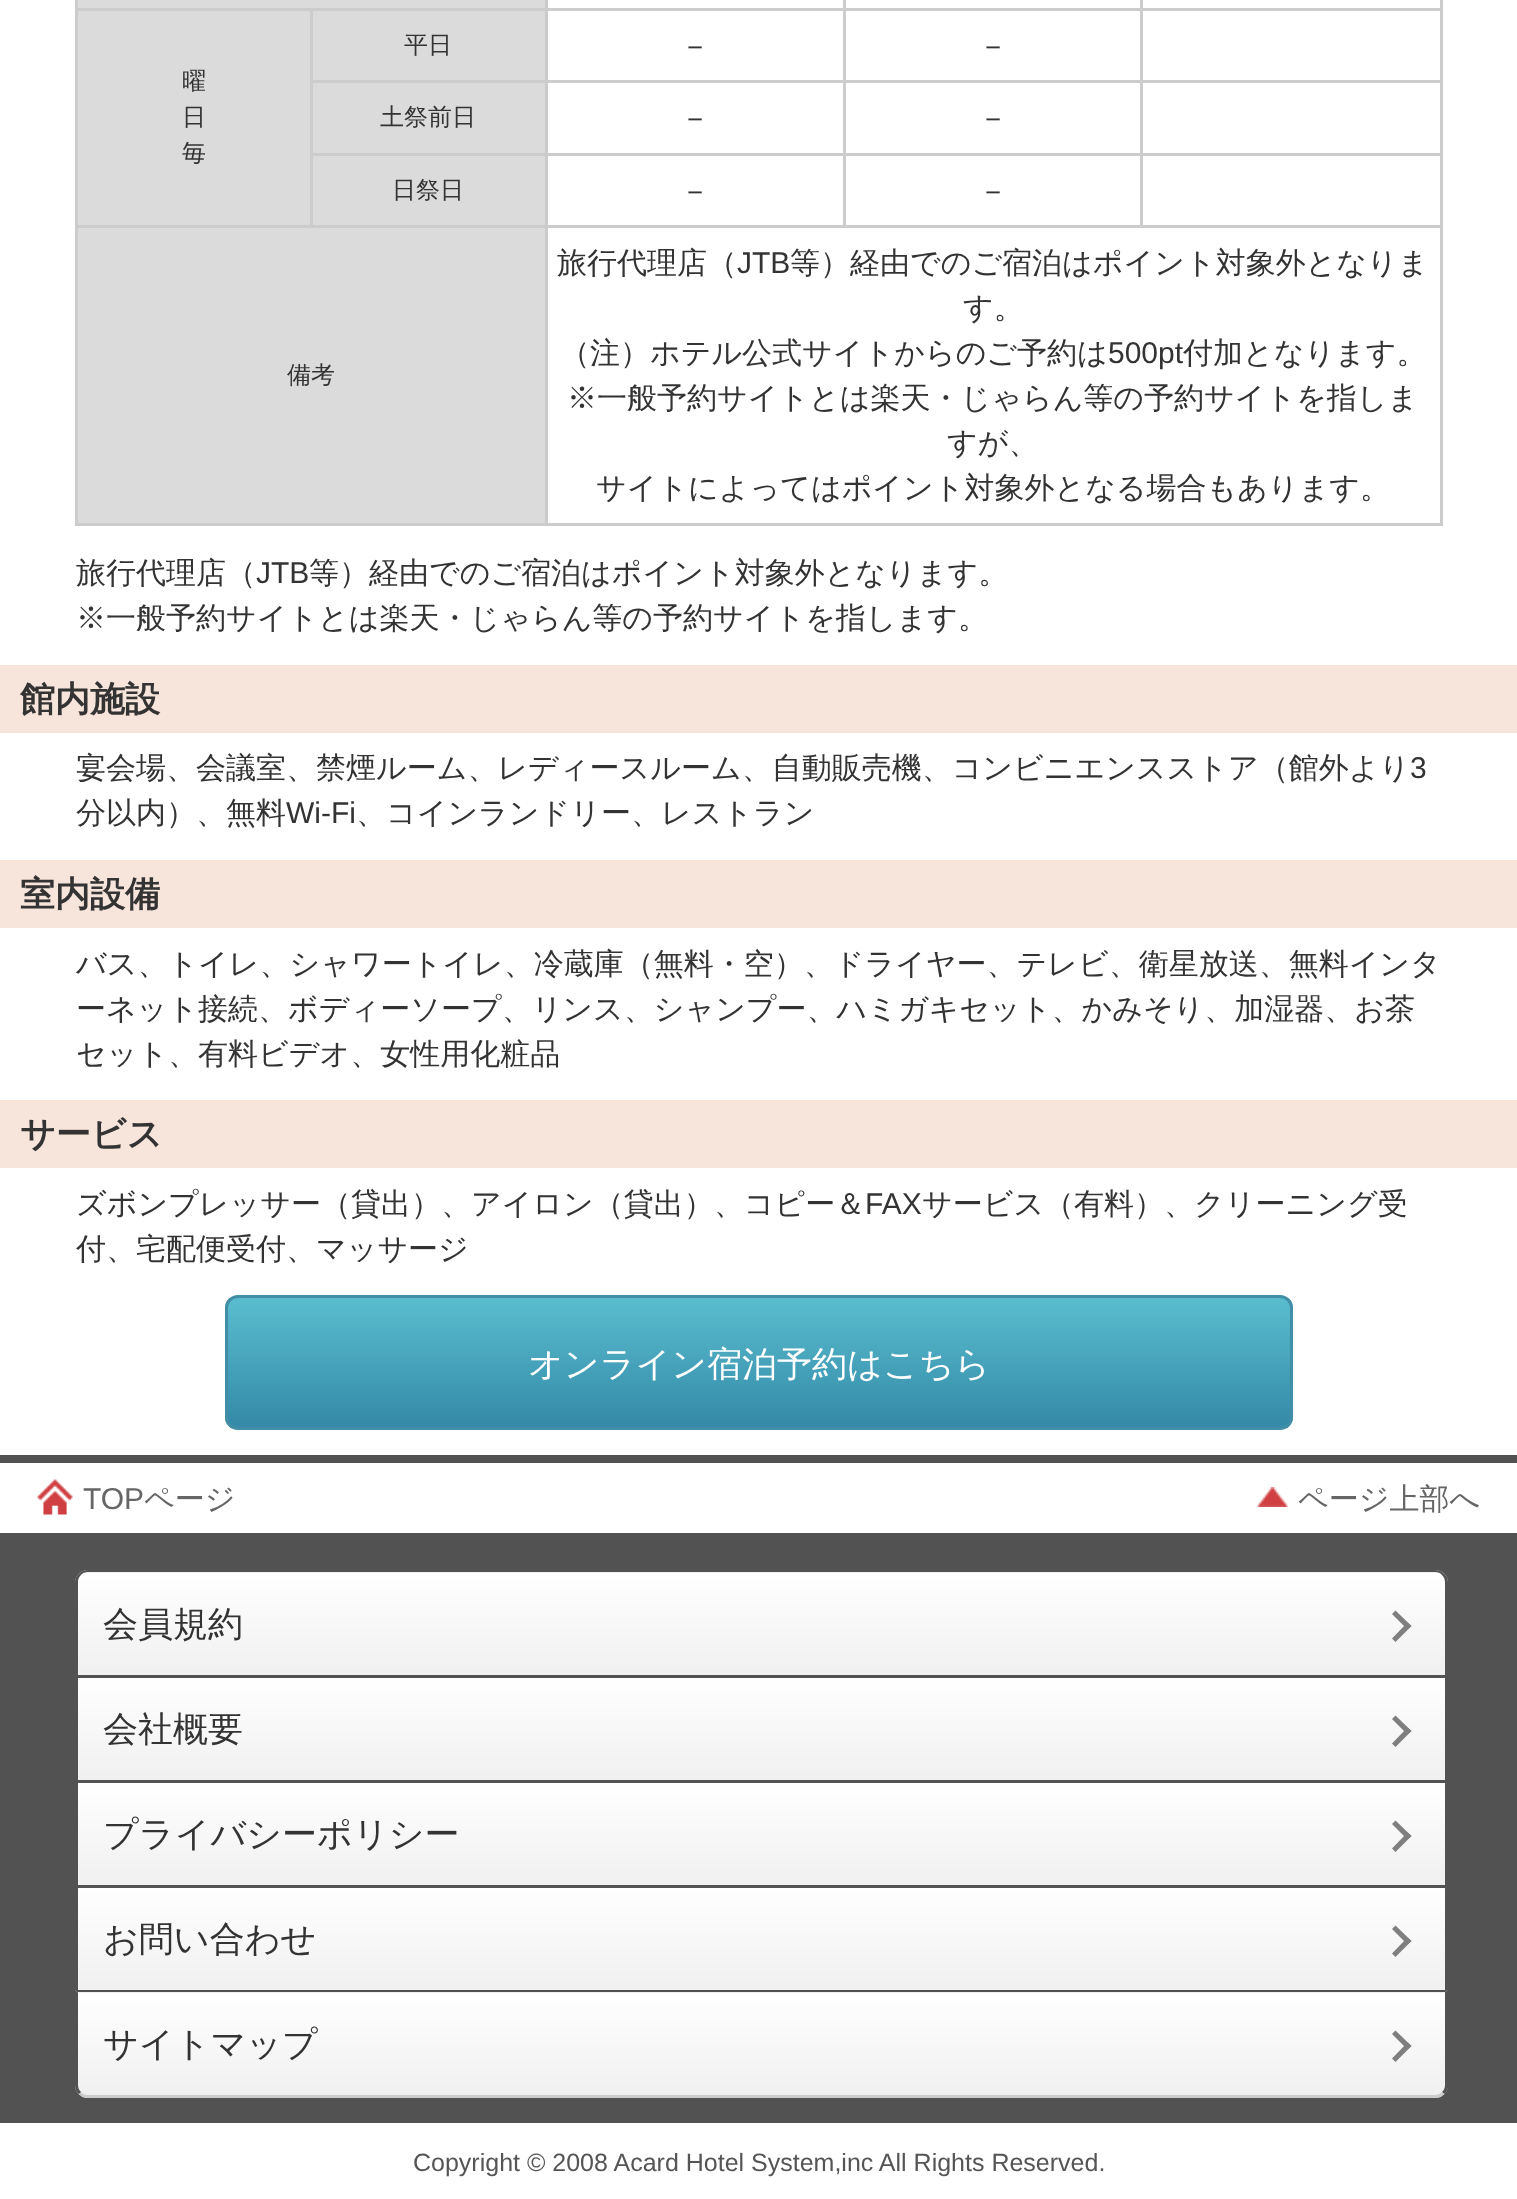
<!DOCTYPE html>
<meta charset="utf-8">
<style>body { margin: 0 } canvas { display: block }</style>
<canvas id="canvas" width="1517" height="2199"></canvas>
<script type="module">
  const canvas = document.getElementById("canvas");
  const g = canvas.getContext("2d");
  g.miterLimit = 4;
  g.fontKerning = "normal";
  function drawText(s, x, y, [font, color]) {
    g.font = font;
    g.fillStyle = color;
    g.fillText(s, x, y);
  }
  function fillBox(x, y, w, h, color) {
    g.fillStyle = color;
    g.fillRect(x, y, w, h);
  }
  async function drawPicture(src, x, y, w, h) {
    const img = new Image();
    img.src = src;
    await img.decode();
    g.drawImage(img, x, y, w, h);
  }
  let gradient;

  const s1 = ["500 24px WenQuanYi Zen Hei", "#333333"];
  const s2 = ["500 30px WenQuanYi Zen Hei", "#333333"];
  const s3 = ["30px Liberation Sans", "#333333"];
  const s4 = ["bold 35px WenQuanYi Zen Hei", "#333333"];
  const s5 = ["500 35px WenQuanYi Zen Hei", "#FFFFFF"];
  const s6 = ["30px Liberation Sans", "#666666"];
  const s7 = ["500 30px WenQuanYi Zen Hei", "#666666"];
  const s8 = ["500 35px WenQuanYi Zen Hei", "#333333"];
  const s9 = ["25px Liberation Sans", "#555555"];

  fillBox(0, 0, 1517, 2199, "#FFFFFF");
  fillBox(1440, 0, 3, 525, "#CCCCCC");
  fillBox(75, 523, 1368, 3, "#CCCCCC");
  fillBox(75, 0, 3, 525, "#CCCCCC");
  fillBox(78, 0, 467, 8, "#DBDBDB");
  fillBox(1140, 8, 303, 3, "#CCCCCC");
  fillBox(1140, 80, 303, 3, "#CCCCCC");
  fillBox(1140, 153, 303, 3, "#CCCCCC");
  fillBox(545, 225, 898, 3, "#CCCCCC");
  fillBox(1140, 153, 3, 75, "#CCCCCC");
  fillBox(843, 153, 300, 3, "#CCCCCC");
  fillBox(1140, 80, 3, 75, "#CCCCCC");
  fillBox(843, 80, 300, 3, "#CCCCCC");
  fillBox(1140, 8, 3, 75, "#CCCCCC");
  fillBox(843, 8, 300, 3, "#CCCCCC");
  fillBox(843, 153, 3, 75, "#CCCCCC");
  fillBox(545, 153, 300, 3, "#CCCCCC");
  fillBox(843, 80, 3, 75, "#CCCCCC");
  fillBox(545, 80, 300, 3, "#CCCCCC");
  fillBox(843, 8, 3, 75, "#CCCCCC");
  fillBox(545, 8, 300, 3, "#CCCCCC");
  fillBox(545, 225, 3, 300, "#CCCCCC");
  fillBox(75, 225, 473, 3, "#CCCCCC");
  fillBox(545, 153, 3, 75, "#CCCCCC");
  fillBox(310, 153, 238, 3, "#CCCCCC");
  fillBox(545, 80, 3, 75, "#CCCCCC");
  fillBox(310, 80, 238, 3, "#CCCCCC");
  fillBox(545, 8, 3, 75, "#CCCCCC");
  fillBox(310, 8, 238, 3, "#CCCCCC");
  fillBox(545, 0, 3, 10, "#CCCCCC");
  fillBox(843, 0, 3, 10, "#CCCCCC");
  fillBox(1140, 0, 3, 10, "#CCCCCC");
  fillBox(313, 11, 232, 69, "#DBDBDB");
  fillBox(310, 153, 3, 75, "#CCCCCC");
  fillBox(310, 80, 3, 75, "#CCCCCC");
  fillBox(310, 8, 3, 75, "#CCCCCC");
  drawText("平日", 404, 53, s1);
  drawText("－", 680, 56, s2);
  drawText("－", 978, 56, s2);
  fillBox(78, 11, 232, 214, "#DBDBDB");
  fillBox(75, 8, 238, 3, "#CCCCCC");
  drawText("曜", 182, 89, s1);
  drawText("日", 182, 125, s1);
  drawText("毎", 182, 161, s1);
  fillBox(313, 83, 232, 70, "#DBDBDB");
  drawText("土祭前日", 380, 125, s1);
  drawText("－", 680, 128, s2);
  drawText("－", 978, 128, s2);
  fillBox(313, 156, 232, 69, "#DBDBDB");
  drawText("日祭日", 392, 198, s1);
  drawText("－", 680, 201, s2);
  drawText("－", 978, 201, s2);
  fillBox(78, 228, 467, 295, "#DBDBDB");
  drawText("備考", 287, 383, s1);
  drawText("旅行代理店（", 557, 273, s2);
  drawText("JTB", 737, 273, s3);
  drawText("等）経由でのご宿泊はポイント対象外となりま", 790, 273, s2);
  drawText("す。", 963, 318, s2);
  drawText("（注）ホテル公式サイトからのご予約は", 560, 363, s2);
  drawText("500pt", 1108, 363, s3);
  drawText("付加となります。", 1183, 363, s2);
  drawText("※一般予約サイトとは楽天・じゃらん等の予約サイトを指しま", 567, 408, s2);
  drawText("すが、", 947, 453, s2);
  drawText("サイトによってはポイント対象外となる場合もあります。", 596, 498, s2);
  drawText("旅行代理店（", 76, 583, s2);
  drawText("JTB", 256, 583, s3);
  drawText("等）経由でのご宿泊はポイント対象外となります。", 309, 583, s2);
  drawText("※一般予約サイトとは楽天・じゃらん等の予約サイトを指します。", 76, 628, s2);
  fillBox(0, 665, 1517, 68, "#F7E4DB");
  drawText("館内施設", 20, 711, s4);
  drawText("宴会場、会議室、禁煙ルーム、レディースルーム、自動販売機、コンビニエンスストア（館外より", 76, 778, s2);
  drawText("3", 1410, 778, s3);
  drawText("分以内）、無料", 76, 823, s2);
  drawText("Wi-Fi", 286, 823, s3);
  drawText("、コインランドリー、レストラン", 356, 823, s2);
  fillBox(0, 860, 1517, 68, "#F7E4DB");
  drawText("室内設備", 20, 906, s4);
  drawText("バス、トイレ、シャワートイレ、冷蔵庫（無料・空）、ドライヤー、テレビ、衛星放送、無料インタ", 76, 974, s2);
  drawText("ーネット接続、ボディーソープ、リンス、シャンプー、ハミガキセット、かみそり、加湿器、お茶", 76, 1019, s2);
  drawText("セット、有料ビデオ、女性用化粧品", 76, 1064, s2);
  fillBox(0, 1100, 1517, 68, "#F7E4DB");
  drawText("サービス", 20, 1146, s4);
  drawText("ズボンプレッサー（貸出）、アイロン（貸出）、コピー＆", 76, 1214, s2);
  drawText("FAX", 865, 1214, s3);
  drawText("サービス（有料）、クリーニング受", 922, 1214, s2);
  drawText("付、宅配便受付、マッサージ", 76, 1259, s2);
  g.save();
  g.beginPath();
  g.roundRect(225, 1295, 1068, 135, 13);
  g.clip();
  gradient = g.createLinearGradient(759, 1298, 759, 1428);
  gradient.addColorStop(0, "#5ABDCF");
  gradient.addColorStop(1, "#3389A7");
  g.fillStyle = gradient;
  g.fillRect(225, 1298, 1068, 130);
  g.restore();
  g.beginPath();
  g.roundRect(226.5, 1296.5, 1065, 132, 11.5);
  g.strokeStyle = "#428EA6";
  g.lineWidth = 3;
  g.stroke();
  drawText("オンライン宿泊予約はこちら", 528, 1376, s5);
  fillBox(0, 1455, 1517, 8, "#535252");
  await drawPicture("pic1.png", 37, 1479, 36, 36);
  drawText("TOP", 83, 1509, s6);
  drawText("ページ", 144, 1509, s7);
  await drawPicture("pic2.png", 1257, 1487, 31, 20);
  drawText("ページ上部へ", 1298, 1509, s7);
  fillBox(0, 1533, 1517, 590, "#535252");
  g.save();
  g.beginPath();
  g.roundRect(75, 1570, 1373, 105, [13, 13, 0, 0]);
  g.clip();
  gradient = g.createLinearGradient(761, 1470, 761, 1573);
  gradient.addColorStop(0, "#FFFFFF");
  gradient.addColorStop(1, "#F0F0F0");
  g.fillStyle = gradient;
  g.fillRect(75, 1570, 1373, 3);
  gradient = g.createLinearGradient(761, 1573, 761, 1675);
  gradient.addColorStop(0, "#FFFFFF");
  gradient.addColorStop(1, "#F0F0F0");
  g.fillStyle = gradient;
  g.fillRect(75, 1573, 1373, 102);
  g.restore();
  g.beginPath();
  g.moveTo(88, 1570);
  g.lineTo(1435, 1570);
  g.bezierCurveTo(1442, 1570, 1448, 1576, 1448, 1582);
  g.lineTo(1448, 1675);
  g.lineTo(75, 1675);
  g.lineTo(75, 1582);
  g.bezierCurveTo(75, 1576, 81, 1570, 88, 1570);
  g.closePath();
  g.moveTo(88, 1572);
  g.lineTo(1435, 1572);
  g.bezierCurveTo(1441, 1572, 1445, 1577, 1445, 1582);
  g.lineTo(1445, 1675);
  g.lineTo(78, 1675);
  g.lineTo(78, 1582);
  g.bezierCurveTo(78, 1577, 82, 1572, 88, 1572);
  g.closePath();
  g.fill("evenodd");
  drawText("会員規約", 103, 1636, s8);
  g.fillStyle = "#7F7F7F";
  g.beginPath();
  g.moveTo(1395.5, 1610.5);
  g.lineTo(1411.5, 1626);
  g.lineTo(1407.5, 1629.5);
  g.lineTo(1392, 1614);
  g.closePath();
  g.fill();
  g.beginPath();
  g.moveTo(1407.5, 1622.5);
  g.lineTo(1411.5, 1626);
  g.lineTo(1395.5, 1642);
  g.lineTo(1392, 1638.5);
  g.closePath();
  g.fill();
  gradient = g.createLinearGradient(761, 1678, 761, 1780);
  gradient.addColorStop(0, "#FFFFFF");
  gradient.addColorStop(1, "#F0F0F0");
  g.fillStyle = gradient;
  g.fillRect(78, 1678, 1367, 102);
  drawText("会社概要", 103, 1741, s8);
  g.fillStyle = "#7F7F7F";
  g.beginPath();
  g.moveTo(1395.5, 1715.5);
  g.lineTo(1411.5, 1731);
  g.lineTo(1407.5, 1734.5);
  g.lineTo(1392, 1719);
  g.closePath();
  g.fill();
  g.beginPath();
  g.moveTo(1407.5, 1727.5);
  g.lineTo(1411.5, 1731);
  g.lineTo(1395.5, 1747);
  g.lineTo(1392, 1743.5);
  g.closePath();
  g.fill();
  gradient = g.createLinearGradient(761, 1783, 761, 1885);
  gradient.addColorStop(0, "#FFFFFF");
  gradient.addColorStop(1, "#F0F0F0");
  g.fillStyle = gradient;
  g.fillRect(78, 1783, 1367, 102);
  drawText("プライバシーポリシー", 103, 1846, s8);
  g.fillStyle = "#7F7F7F";
  g.beginPath();
  g.moveTo(1395.5, 1820.5);
  g.lineTo(1411.5, 1836);
  g.lineTo(1407.5, 1839.5);
  g.lineTo(1392, 1824);
  g.closePath();
  g.fill();
  g.beginPath();
  g.moveTo(1407.5, 1832.5);
  g.lineTo(1411.5, 1836);
  g.lineTo(1395.5, 1852);
  g.lineTo(1392, 1848.5);
  g.closePath();
  g.fill();
  gradient = g.createLinearGradient(761, 1888, 761, 1990);
  gradient.addColorStop(0, "#FFFFFF");
  gradient.addColorStop(1, "#F0F0F0");
  g.fillStyle = gradient;
  g.fillRect(78, 1888, 1367, 102);
  drawText("お問い合わせ", 103, 1951, s8);
  g.fillStyle = "#7F7F7F";
  g.beginPath();
  g.moveTo(1395.5, 1925.5);
  g.lineTo(1411.5, 1941);
  g.lineTo(1407.5, 1944.5);
  g.lineTo(1392, 1929);
  g.closePath();
  g.fill();
  g.beginPath();
  g.moveTo(1407.5, 1937.5);
  g.lineTo(1411.5, 1941);
  g.lineTo(1395.5, 1957);
  g.lineTo(1392, 1953.5);
  g.closePath();
  g.fill();
  gradient = g.createLinearGradient(761, 1890, 761, 1993);
  gradient.addColorStop(0, "#FFFFFF");
  gradient.addColorStop(1, "#F0F0F0");
  g.fillStyle = gradient;
  g.fillRect(75, 1990, 1373, 3);
  g.save();
  g.beginPath();
  g.roundRect(75, 1990, 1373, 108, [0, 0, 13, 13]);
  g.clip();
  gradient = g.createLinearGradient(761, 1993, 761, 2095);
  gradient.addColorStop(0, "#FFFFFF");
  gradient.addColorStop(1, "#F0F0F0");
  g.fillStyle = gradient;
  g.fillRect(75, 1993, 1373, 102);
  g.restore();
  g.fillStyle = "#535252";
  g.beginPath();
  g.moveTo(75, 1990);
  g.lineTo(78, 1993);
  g.lineTo(78, 1992);
  g.lineTo(1445, 1992);
  g.lineTo(1448, 1990);
  g.closePath();
  g.fill();
  g.beginPath();
  g.moveTo(1448, 1990);
  g.lineTo(1448, 2088);
  g.bezierCurveTo(1447, 2091, 1446, 2093, 1444, 2094);
  g.lineTo(1442, 2092);
  g.bezierCurveTo(1444, 2090, 1445, 2088, 1445, 2085);
  g.lineTo(1445, 1992);
  g.closePath();
  g.fill();
  g.fillStyle = "#CCCCCC";
  g.beginPath();
  g.moveTo(85, 2098);
  g.bezierCurveTo(82, 2097, 80, 2096, 79, 2094);
  g.lineTo(81, 2092);
  g.bezierCurveTo(82, 2094, 85, 2095, 88, 2095);
  g.lineTo(1435, 2095);
  g.bezierCurveTo(1438, 2095, 1440, 2094, 1442, 2092);
  g.lineTo(1444, 2094);
  g.bezierCurveTo(1443, 2096, 1441, 2097, 1438, 2098);
  g.closePath();
  g.fill();
  g.fillStyle = "#535252";
  g.beginPath();
  g.moveTo(75, 1990);
  g.lineTo(75, 2085);
  g.bezierCurveTo(75, 2088, 76, 2092, 79, 2094);
  g.lineTo(81, 2092);
  g.bezierCurveTo(79, 2090, 78, 2088, 78, 2085);
  g.lineTo(78, 1993);
  g.closePath();
  g.fill();
  drawText("サイトマップ", 103, 2056, s8);
  g.fillStyle = "#7F7F7F";
  g.beginPath();
  g.moveTo(1395.5, 2030.5);
  g.lineTo(1411.5, 2046);
  g.lineTo(1407.5, 2049.5);
  g.lineTo(1392, 2034);
  g.closePath();
  g.fill();
  g.beginPath();
  g.moveTo(1407.5, 2042.5);
  g.lineTo(1411.5, 2046);
  g.lineTo(1395.5, 2062);
  g.lineTo(1392, 2058.5);
  g.closePath();
  g.fill();
  drawText("Copyright © 2008 Acard Hotel System,inc All Rights Reserved.", 413, 2171, s9);
</script>
